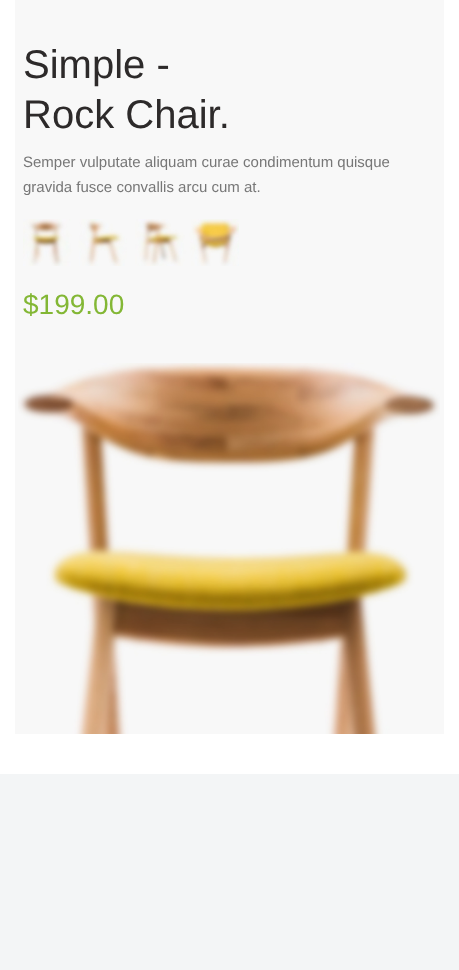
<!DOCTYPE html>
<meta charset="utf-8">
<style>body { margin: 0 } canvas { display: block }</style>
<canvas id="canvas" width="459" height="970"></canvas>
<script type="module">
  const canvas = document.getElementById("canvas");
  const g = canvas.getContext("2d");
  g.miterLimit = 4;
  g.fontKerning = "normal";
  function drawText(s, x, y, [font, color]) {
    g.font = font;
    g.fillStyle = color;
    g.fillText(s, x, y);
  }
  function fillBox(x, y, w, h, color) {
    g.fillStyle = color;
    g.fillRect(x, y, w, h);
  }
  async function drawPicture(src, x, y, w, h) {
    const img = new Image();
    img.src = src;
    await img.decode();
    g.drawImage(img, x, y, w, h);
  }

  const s1 = ["40px Liberation Sans", "#2D2A2A"];
  const s2 = ["15px Liberation Sans", "#777777"];
  const s3 = ["28px Liberation Sans", "#83B735"];

  fillBox(0, 0, 459, 970, "#F3F5F6");
  fillBox(0, 0, 459, 774, "#FFFFFF");
  fillBox(15, 0, 429, 734, "#F8F8F8");
  drawText("Simple -", 23, 78, s1);
  drawText("Rock Chair.", 23, 128, s1);
  drawText("Semper vulputate aliquam curae condimentum quisque", 23, 167, s2);
  drawText("gravida fusce convallis arcu cum at.", 23, 192, s2);
  await drawPicture("pic1.png", 23, 219, 216, 47);
  drawText("$199.00", 23, 314, s3);
  await drawPicture("pic2.png", 18, 363, 422, 371);
</script>
